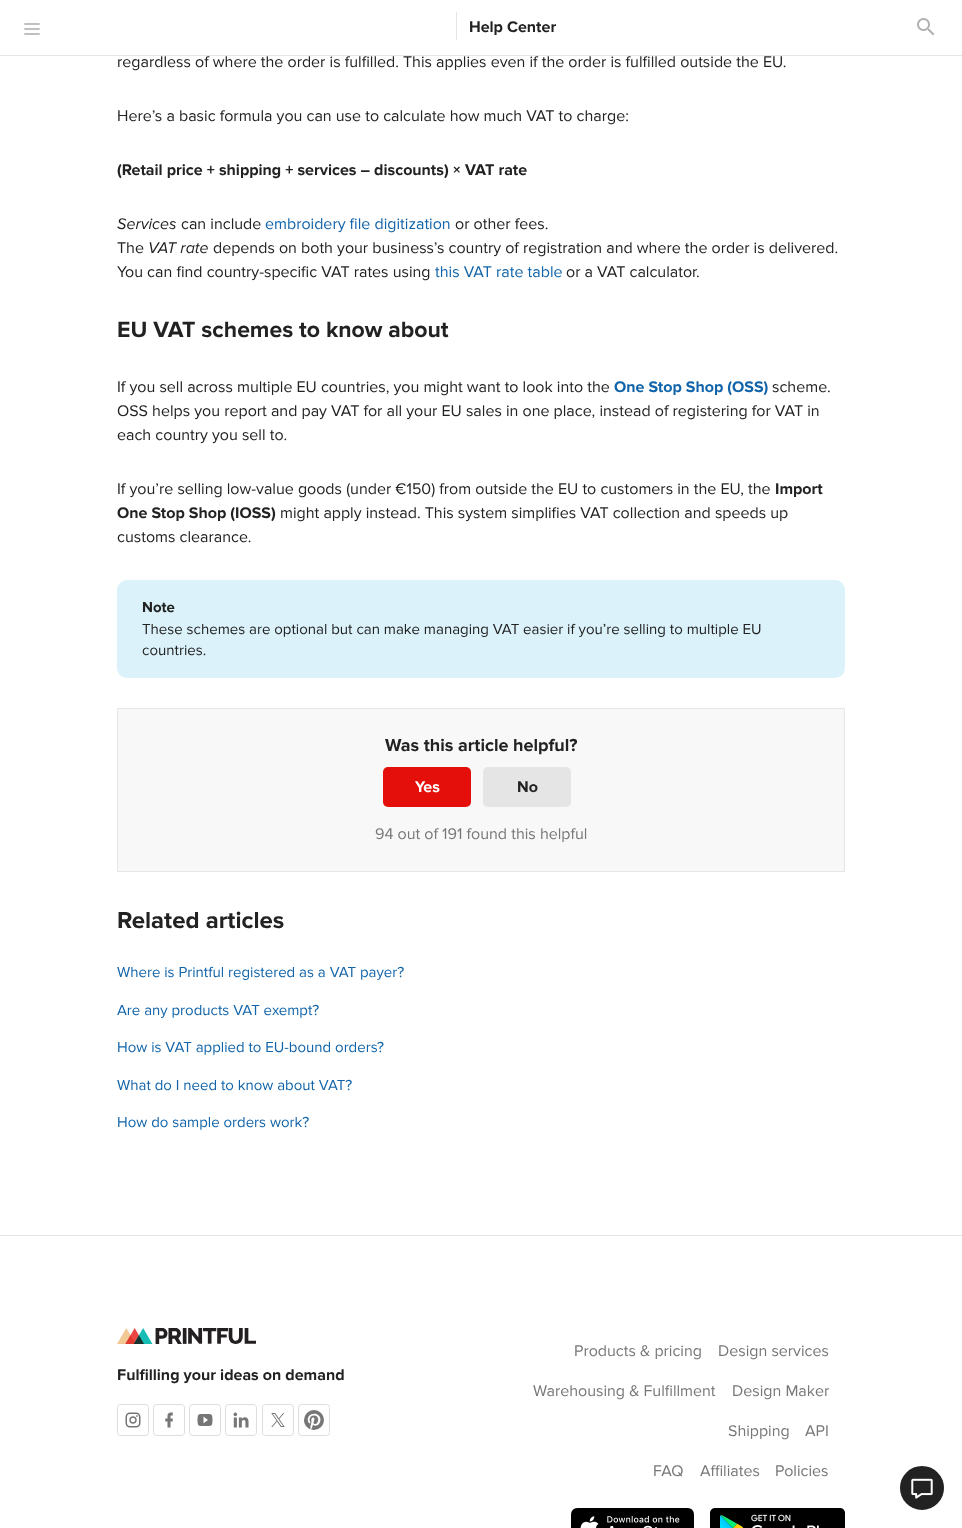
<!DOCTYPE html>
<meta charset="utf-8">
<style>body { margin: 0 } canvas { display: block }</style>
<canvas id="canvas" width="962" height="1528"></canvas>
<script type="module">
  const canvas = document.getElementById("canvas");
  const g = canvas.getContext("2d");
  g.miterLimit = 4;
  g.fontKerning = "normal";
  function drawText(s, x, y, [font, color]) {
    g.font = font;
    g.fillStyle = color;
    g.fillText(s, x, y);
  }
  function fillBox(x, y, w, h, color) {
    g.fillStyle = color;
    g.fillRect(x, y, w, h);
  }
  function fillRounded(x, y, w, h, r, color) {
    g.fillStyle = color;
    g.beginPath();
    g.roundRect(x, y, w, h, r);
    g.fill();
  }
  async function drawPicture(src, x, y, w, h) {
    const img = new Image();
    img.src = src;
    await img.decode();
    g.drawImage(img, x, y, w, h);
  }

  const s1 = ["bold 16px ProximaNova", "#222222"];
  const s2 = ["16px ProximaNova", "#222222"];
  const s3 = ["italic 16px ProximaNova", "#222222"];
  const s4 = ["16px ProximaNova", "#1164A9"];
  const s5 = ["bold 23px ProximaNova", "#222222"];
  const s6 = ["bold 16px ProximaNova", "#1164A9"];
  const s7 = ["bold 15px ProximaNova", "#222222"];
  const s8 = ["15px ProximaNova", "#222222"];
  const s9 = ["bold 18px ProximaNova", "#222222"];
  const s10 = ["bold 16px ProximaNova", "#FFFFFF"];
  const s11 = ["16px ProximaNova", "#777777"];
  const s12 = ["bold 24px ProximaNova", "#222222"];
  const s13 = ["15px ProximaNova", "#1164A9"];

  fillBox(0, 0, 962, 1528, "#FFFFFF");
  fillBox(0, 55, 962, 1, "#E5E5E5");
  fillRounded(24, 23, 16, 2, 1, "#C0C0C0");
  fillRounded(24, 28, 16, 2, 1, "#C0C0C0");
  fillRounded(24, 33, 16, 2, 1, "#C0C0C0");
  fillBox(456, 12, 1, 28, "#E5E5E5");
  drawText("Help Center", 469, 32, s1);
  await drawPicture("pic1.png", 917, 18, 18, 18);
  drawText("regardless of where the order is fulfilled. This applies even if the order is fulfilled outside the EU.", 117, 67, s2);
  drawText("Here’s a basic formula you can use to calculate how much VAT to charge:", 117, 121, s2);
  drawText("(Retail price + shipping + services – discounts) × VAT rate", 117, 175, s1);
  drawText("Services", 117, 229, s3);
  drawText("can include", 181, 229, s2);
  drawText("embroidery file digitization", 265, 229, s4);
  drawText("or other fees.", 455, 229, s2);
  drawText("The", 117, 253, s2);
  drawText("VAT rate", 148, 253, s3);
  drawText("depends on both your business’s country of registration and where the order is delivered.", 213, 253, s2);
  drawText("You can find country-specific VAT rates using", 117, 277, s2);
  drawText("this VAT rate table", 435, 277, s4);
  drawText("or a VAT calculator.", 566, 277, s2);
  drawText("EU VAT schemes to know about", 117, 337, s5);
  drawText("If you sell across multiple EU countries, you might want to look into the", 117, 392, s2);
  drawText("One Stop Shop (OSS)", 614, 392, s6);
  drawText("scheme.", 772, 392, s2);
  drawText("OSS helps you report and pay VAT for all your EU sales in one place, instead of registering for VAT in", 117, 416, s2);
  drawText("each country you sell to.", 117, 440, s2);
  drawText("If you’re selling low-value goods (under €150) from outside the EU to customers in the EU, the", 117, 494, s2);
  drawText("Import", 775, 494, s1);
  drawText("One Stop Shop (IOSS)", 117, 518, s1);
  drawText("might apply instead. This system simplifies VAT collection and speeds up", 280, 518, s2);
  drawText("customs clearance.", 117, 542, s2);
  fillRounded(117, 580, 728, 98, 10, "#DBF2FA");
  drawText("Note", 142, 612, s7);
  drawText("These schemes are optional but can make managing VAT easier if you’re selling to multiple EU", 142, 634, s8);
  drawText("countries.", 142, 655, s8);
  g.fillStyle = "#F8F8F8";
  g.beginPath();
  g.rect(117.5, 708.5, 727, 163);
  g.fill();
  g.strokeStyle = "#E5E5E5";
  g.stroke();
  drawText("Was this article helpful?", 385, 751, s9);
  fillRounded(383, 767, 88, 40, 5, "#E40F0A");
  drawText("Yes", 415, 792, s10);
  fillRounded(483, 767, 88, 40, 5, "#E5E5E5");
  drawText("No", 517, 792, s1);
  drawText("94 out of 191 found this helpful", 375, 839, s11);
  drawText("Related articles", 117, 928, s12);
  drawText("Where is Printful registered as a VAT payer?", 117, 977, s13);
  drawText("Are any products VAT exempt?", 117, 1015, s13);
  drawText("How is VAT applied to EU-bound orders?", 117, 1052, s13);
  drawText("What do I need to know about VAT?", 117, 1090, s13);
  drawText("How do sample orders work?", 117, 1127, s13);
  fillBox(0, 1235, 962, 1, "#E5E5E5");
  await drawPicture("pic2.png", 117, 1328, 139, 16);
  drawText("Fulfilling your ideas on demand", 117, 1380, s1);
  await drawPicture("pic3.png", 117, 1404, 32, 32);
  await drawPicture("pic4.png", 153, 1404, 32, 32);
  await drawPicture("pic5.png", 189, 1404, 32, 32);
  await drawPicture("pic6.png", 225, 1404, 32, 32);
  await drawPicture("pic7.png", 262, 1404, 32, 32);
  await drawPicture("pic8.png", 298, 1404, 32, 32);
  drawText("Products & pricing", 574, 1356, s11);
  drawText("Design services", 718, 1356, s11);
  drawText("Warehousing & Fulfillment", 533, 1396, s11);
  drawText("Design Maker", 732, 1396, s11);
  drawText("Shipping", 728, 1436, s11);
  drawText("API", 805, 1436, s11);
  drawText("FAQ", 653, 1476, s11);
  drawText("Affiliates", 700, 1476, s11);
  drawText("Policies", 775, 1476, s11);
  await drawPicture("pic9.png", 571, 1508, 123, 20);
  await drawPicture("pic10.png", 710, 1508, 135, 20);
  g.fillStyle = "#222222";
  g.beginPath();
  g.arc(922, 1488, 23, 0, Math.PI * 2);
  g.fill();
  g.strokeStyle = "#FFFFFF";
  g.lineWidth = 2;
  g.stroke();
  await drawPicture("pic11.png", 911, 1478, 22, 21);
</script>
